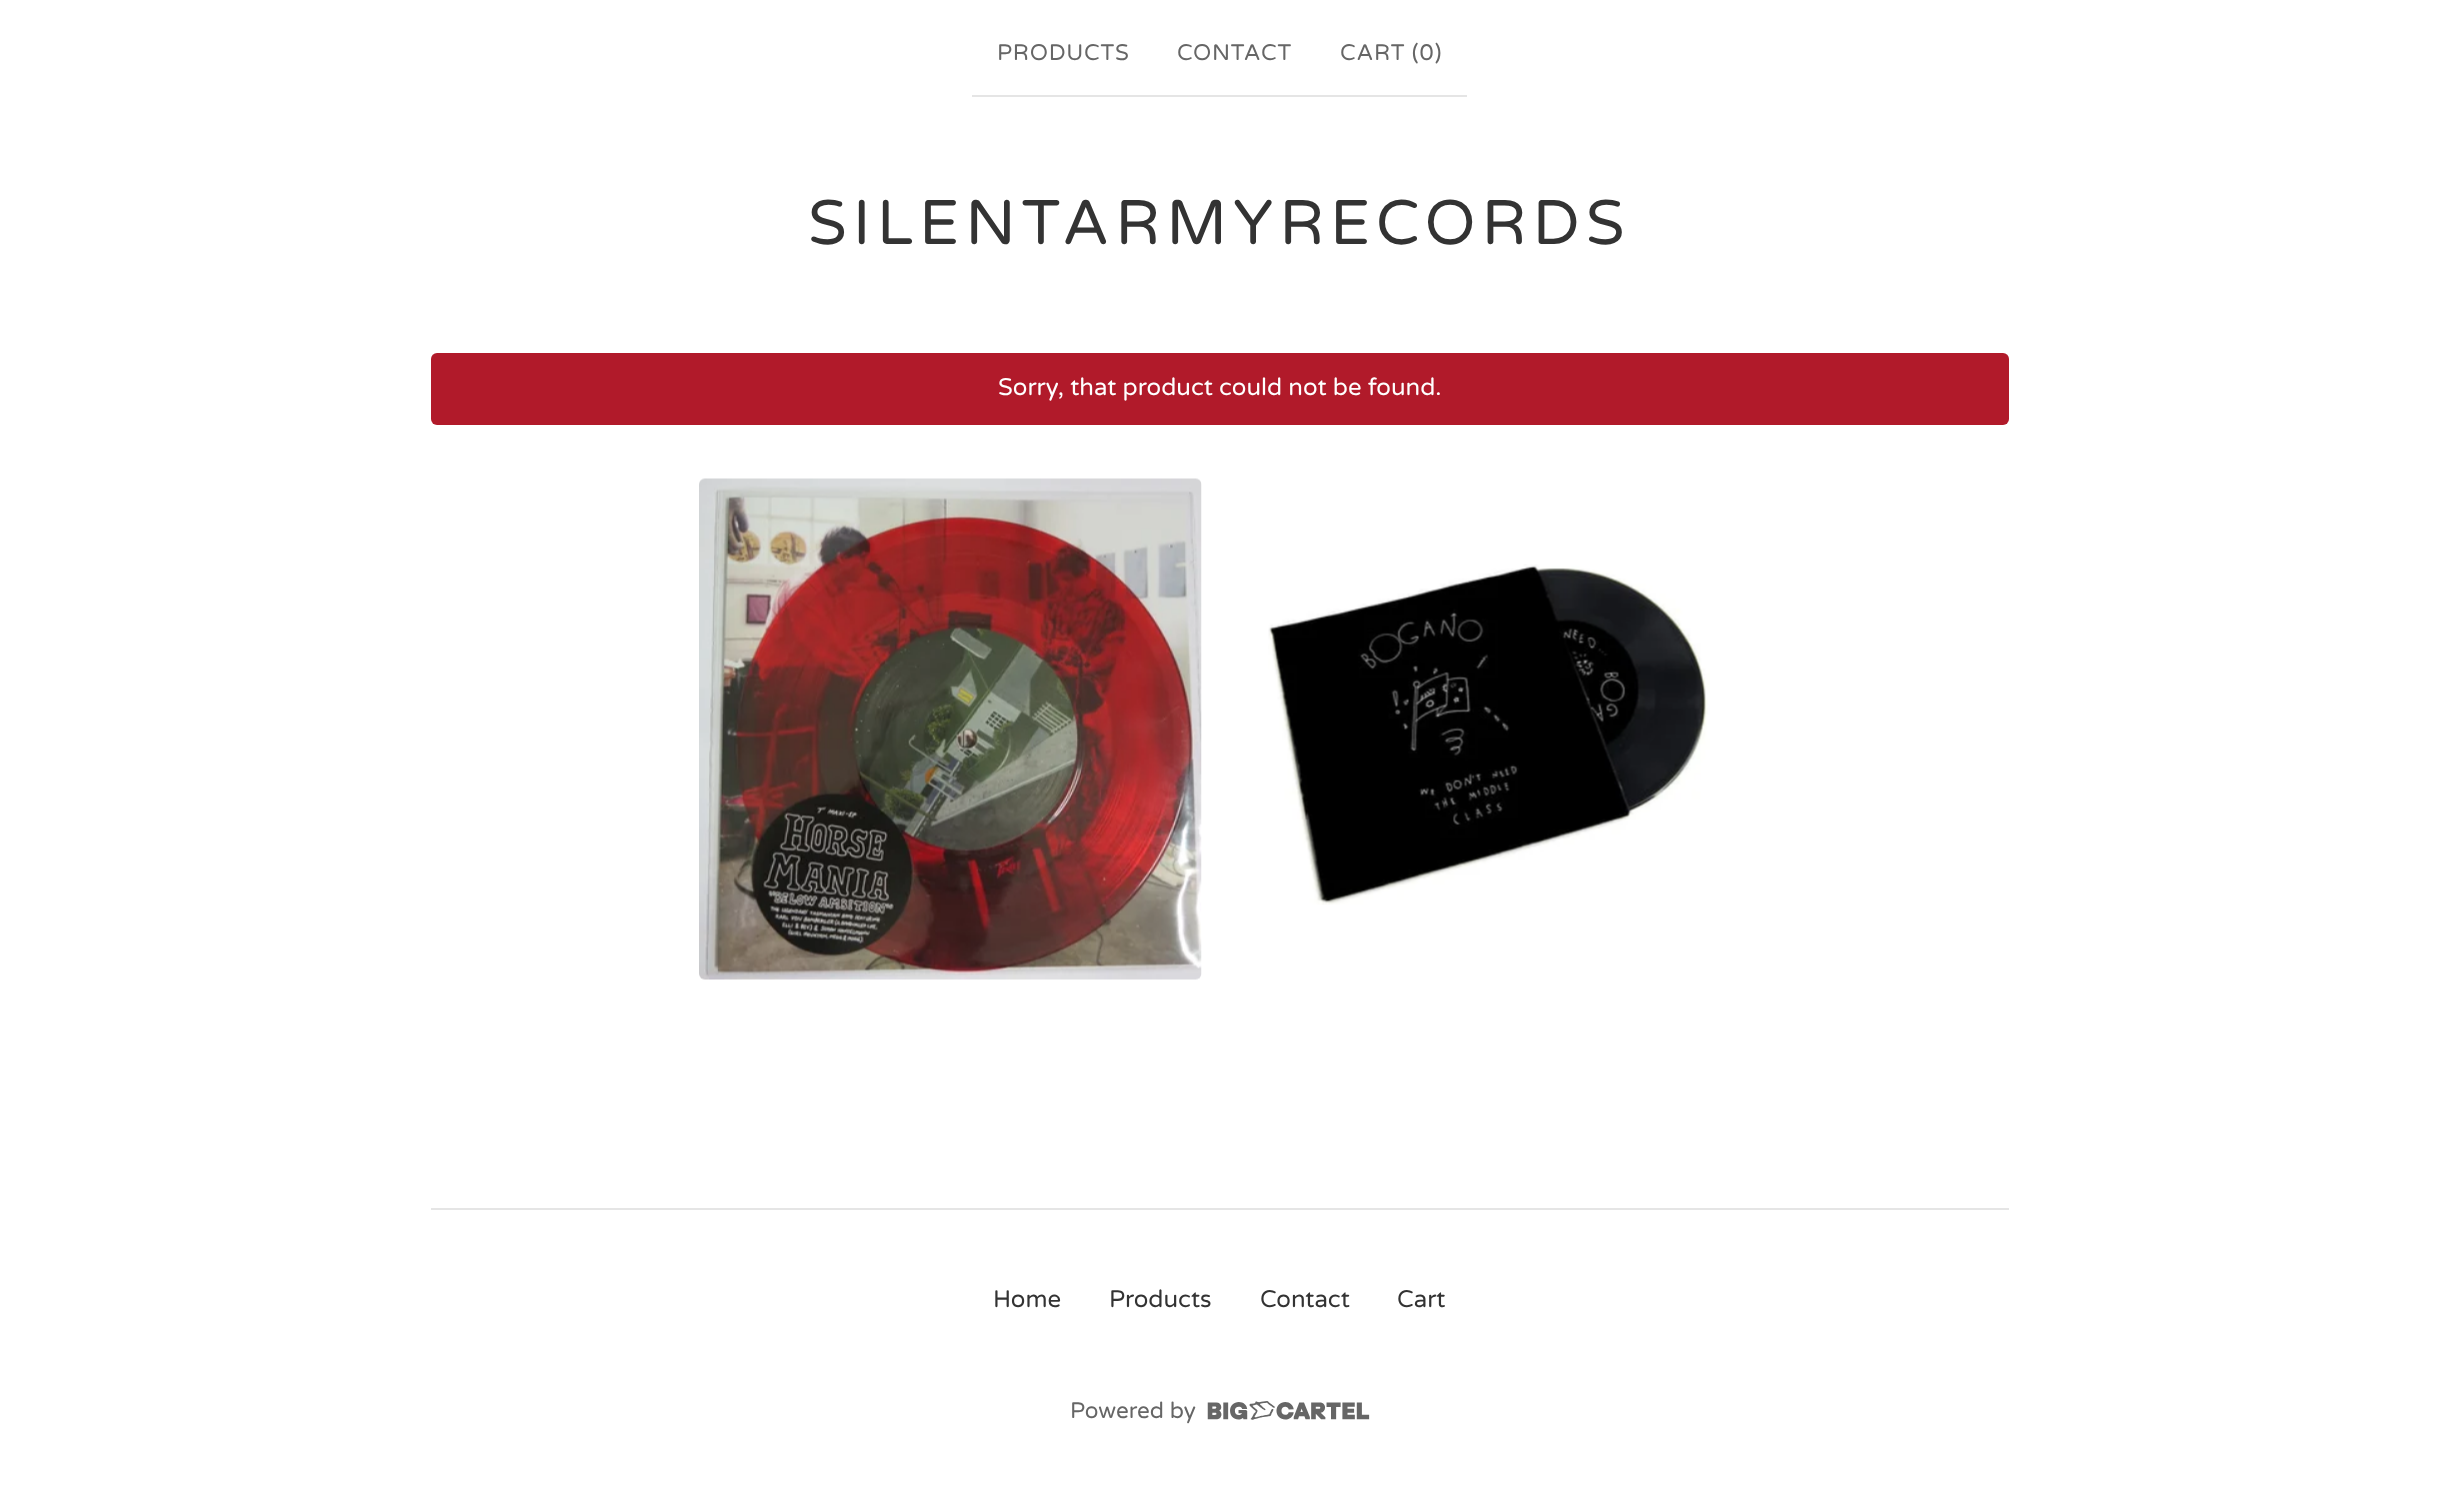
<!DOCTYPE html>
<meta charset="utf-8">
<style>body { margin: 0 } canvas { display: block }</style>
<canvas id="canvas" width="2438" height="1492"></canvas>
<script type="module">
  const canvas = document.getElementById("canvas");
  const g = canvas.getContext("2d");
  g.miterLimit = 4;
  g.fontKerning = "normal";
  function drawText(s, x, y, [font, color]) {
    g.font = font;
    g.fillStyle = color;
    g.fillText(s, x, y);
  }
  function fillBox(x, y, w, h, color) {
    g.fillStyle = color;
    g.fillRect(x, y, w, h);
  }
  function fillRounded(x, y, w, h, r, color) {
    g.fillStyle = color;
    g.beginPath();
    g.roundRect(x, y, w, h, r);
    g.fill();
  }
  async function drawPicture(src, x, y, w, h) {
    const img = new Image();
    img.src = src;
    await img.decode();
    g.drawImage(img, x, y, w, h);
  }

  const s1 = ["22.5px Varela Round", "#666666"];
  const s2 = ["63px Varela Round", "#333333"];
  const s3 = ["24px Varela Round", "#FFFFFF"];
  const s4 = ["24px Varela Round", "#333333"];

  fillBox(0, 0, 2438, 1492, "#FFFFFF");
  fillBox(972, 95, 495, 2, "#E5E5E5");
  g.letterSpacing = "0.75px";
  drawText("PRODUCTS", 997, 60, s1);
  drawText("CONTACT", 1177, 60, s1);
  drawText("CART (0)", 1340, 60, s1);
  g.letterSpacing = "6px";
  drawText("SILENTARMYRECORDS", 808, 244, s2);
  fillRounded(431, 353, 1578, 72, 6, "#B11A2A");
  g.letterSpacing = "0px";
  drawText("Sorry, that product could not be found.", 998, 395, s3);
  await drawPicture("pic1.png", 699, 478, 503, 502);
  await drawPicture("pic2.png", 1268, 564, 442, 341);
  fillBox(431, 1208, 1578, 2, "#E5E5E5");
  drawText("Home", 993, 1307, s4);
  drawText("Products", 1109, 1307, s4);
  drawText("Contact", 1260, 1307, s4);
  drawText("Cart", 1397, 1307, s4);
  drawText("Powered by", 1070, 1418, s1);
  await drawPicture("pic3.png", 1207, 1401, 163, 19);
</script>
